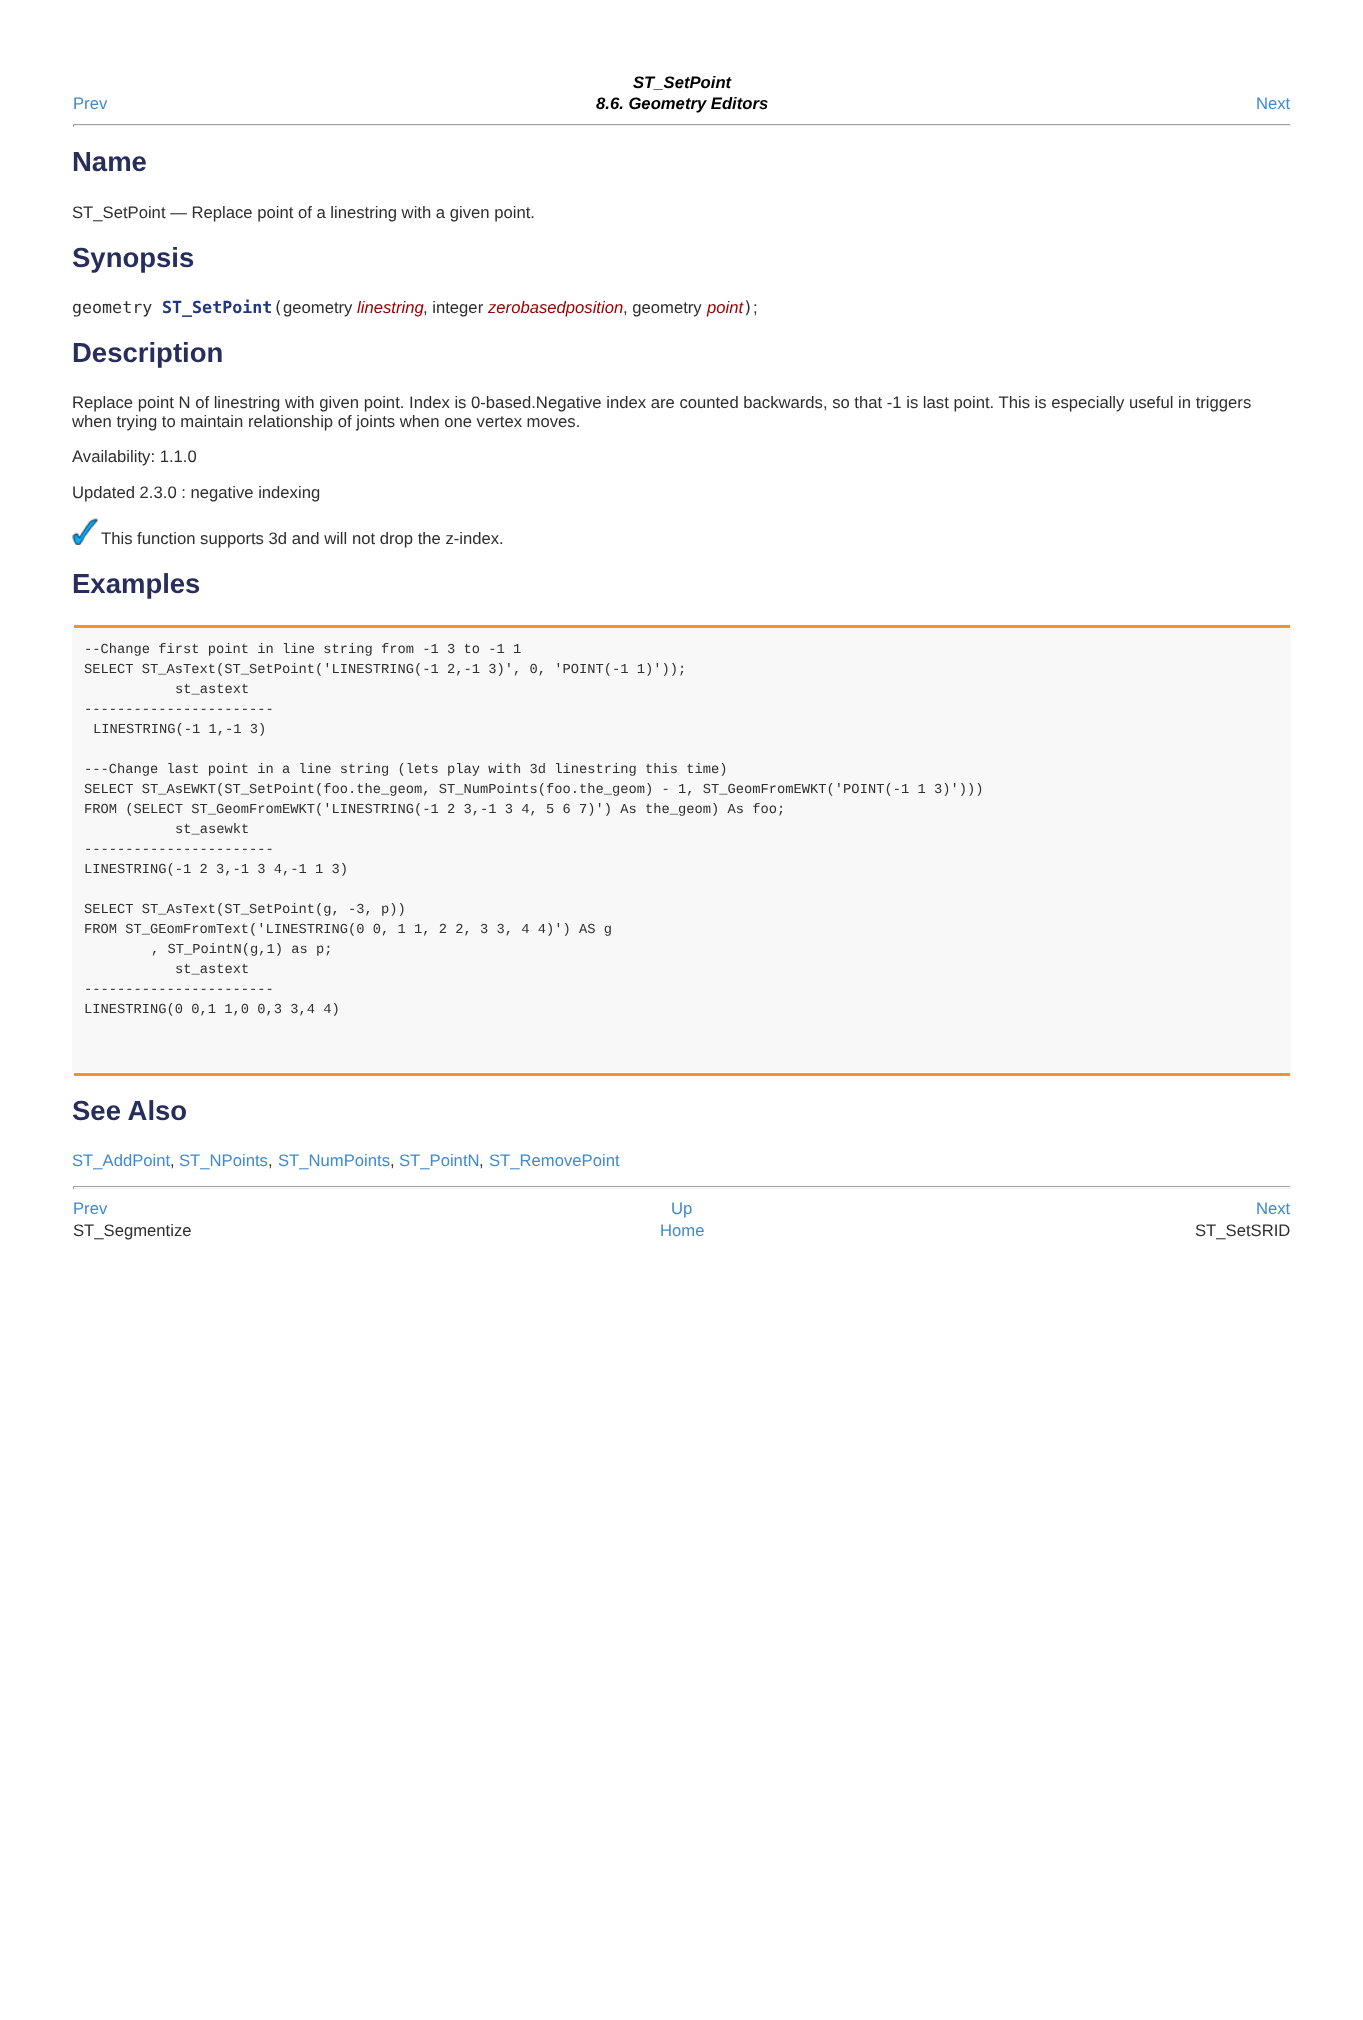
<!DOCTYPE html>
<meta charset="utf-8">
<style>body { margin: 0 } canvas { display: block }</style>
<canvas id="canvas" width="1363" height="2020"></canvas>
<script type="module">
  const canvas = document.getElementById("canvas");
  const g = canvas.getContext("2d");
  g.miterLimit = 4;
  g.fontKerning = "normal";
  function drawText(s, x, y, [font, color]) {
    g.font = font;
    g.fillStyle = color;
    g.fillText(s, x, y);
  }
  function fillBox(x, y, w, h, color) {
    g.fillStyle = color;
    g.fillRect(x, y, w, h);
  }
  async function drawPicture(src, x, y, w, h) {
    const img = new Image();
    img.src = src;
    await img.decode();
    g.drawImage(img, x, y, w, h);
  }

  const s1 = ["italic bold 16.67px Liberation Sans", "#000000"];
  const s2 = ["16.67px Liberation Sans", "#418ACD"];
  const s3 = ["bold 27.5px Liberation Sans", "#282E5B"];
  const s4 = ["16.67px Liberation Sans", "#2E2E2E"];
  const s5 = ["16.67px DejaVu Sans Mono", "#2E2E2E"];
  const s6 = ["bold 16.67px DejaVu Sans Mono", "#213780"];
  const s7 = ["italic 16.67px Liberation Sans", "#990000"];
  const s8 = ["13.75px Liberation Mono", "#2E2E2E"];

  fillBox(0, 0, 1363, 2020, "#FFFFFF");
  drawText("ST_SetPoint", 633, 88, s1);
  drawText("Prev", 73, 109, s2);
  drawText("8.6. Geometry Editors", 596, 109, s1);
  drawText("Next", 1256, 109, s2);
  fillBox(73, 124, 1218, 1, "#9F9F9F");
  fillBox(1290, 124, 1, 3, "#EEEEEE");
  fillBox(73, 125, 1218, 1, "#EEEEEE");
  fillBox(73, 124, 1, 3, "#9F9F9F");
  drawText("Name", 72, 171, s3);
  drawText("ST_SetPoint — Replace point of a linestring with a given point.", 72, 218, s4);
  drawText("Synopsis", 72, 267, s3);
  drawText("geometry", 72, 313, s5);
  drawText("ST_SetPoint", 162, 313, s6);
  drawText("(", 273, 313, s5);
  drawText("geometry", 283, 313, s4);
  drawText("linestring", 357, 313, s7);
  drawText(", integer", 423, 313, s4);
  drawText("zerobasedposition", 488, 313, s7);
  drawText(", geometry", 623, 313, s4);
  drawText("point", 707, 313, s7);
  drawText(")", 743, 313, s5);
  drawText(";", 753, 313, s4);
  drawText("Description", 72, 362, s3);
  drawText("Replace point N of linestring with given point. Index is 0-based.Negative index are counted backwards, so that -1 is last point. This is especially useful in triggers", 72, 408, s4);
  drawText("when trying to maintain relationship of joints when one vertex moves.", 72, 427, s4);
  drawText("Availability: 1.1.0", 72, 462, s4);
  drawText("Updated 2.3.0 : negative indexing", 72, 498, s4);
  await drawPicture("pic1.png", 72, 518, 26, 27);
  drawText("This function supports 3d and will not drop the z-index.", 101, 544, s4);
  drawText("Examples", 72, 593, s3);
  g.fillStyle = "#F8F8F9";
  g.beginPath();
  g.moveTo(75, 628);
  g.lineTo(1291, 628);
  g.lineTo(1291, 1072);
  g.lineTo(72, 1072);
  g.lineTo(72, 628);
  g.closePath();
  g.fill();
  fillBox(74, 625, 1216, 3, "#F7931E");
  fillBox(74, 1073, 1216, 3, "#F7931E");
  drawText("--Change first point in line string from -1 3 to -1 1", 84, 653, s8);
  drawText("SELECT ST_AsText(ST_SetPoint('LINESTRING(-1 2,-1 3)', 0, 'POINT(-1 1)'));", 84, 673, s8);
  drawText("st_astext", 175, 693, s8);
  drawText("-----------------------", 84, 713, s8);
  drawText("LINESTRING(-1 1,-1 3)", 93, 733, s8);
  drawText("---Change last point in a line string (lets play with 3d linestring this time)", 84, 773, s8);
  drawText("SELECT ST_AsEWKT(ST_SetPoint(foo.the_geom, ST_NumPoints(foo.the_geom) - 1, ST_GeomFromEWKT('POINT(-1 1 3)')))", 84, 793, s8);
  drawText("FROM (SELECT ST_GeomFromEWKT('LINESTRING(-1 2 3,-1 3 4, 5 6 7)') As the_geom) As foo;", 84, 813, s8);
  drawText("st_asewkt", 175, 833, s8);
  drawText("-----------------------", 84, 853, s8);
  drawText("LINESTRING(-1 2 3,-1 3 4,-1 1 3)", 84, 873, s8);
  drawText("SELECT ST_AsText(ST_SetPoint(g, -3, p))", 84, 913, s8);
  drawText("FROM ST_GEomFromText('LINESTRING(0 0, 1 1, 2 2, 3 3, 4 4)') AS g", 84, 933, s8);
  drawText(", ST_PointN(g,1) as p;", 151, 953, s8);
  drawText("st_astext", 175, 973, s8);
  drawText("-----------------------", 84, 993, s8);
  drawText("LINESTRING(0 0,1 1,0 0,3 3,4 4)", 84, 1013, s8);
  drawText("See Also", 72, 1120, s3);
  drawText("ST_AddPoint", 72, 1166, s2);
  drawText(",", 170, 1166, s4);
  drawText("ST_NPoints", 179, 1166, s2);
  drawText(",", 268, 1166, s4);
  drawText("ST_NumPoints", 278, 1166, s2);
  drawText(",", 390, 1166, s4);
  drawText("ST_PointN", 399, 1166, s2);
  drawText(",", 479, 1166, s4);
  drawText("ST_RemovePoint", 489, 1166, s2);
  fillBox(73, 1186, 1218, 1, "#9F9F9F");
  fillBox(1290, 1186, 1, 3, "#EEEEEE");
  fillBox(73, 1188, 1218, 1, "#EEEEEE");
  fillBox(73, 1186, 1, 3, "#9F9F9F");
  drawText("Prev", 73, 1214, s2);
  drawText("Up", 671, 1214, s2);
  drawText("Next", 1256, 1214, s2);
  drawText("ST_Segmentize", 73, 1236, s4);
  drawText("Home", 660, 1236, s2);
  drawText("ST_SetSRID", 1195, 1236, s4);
</script>
